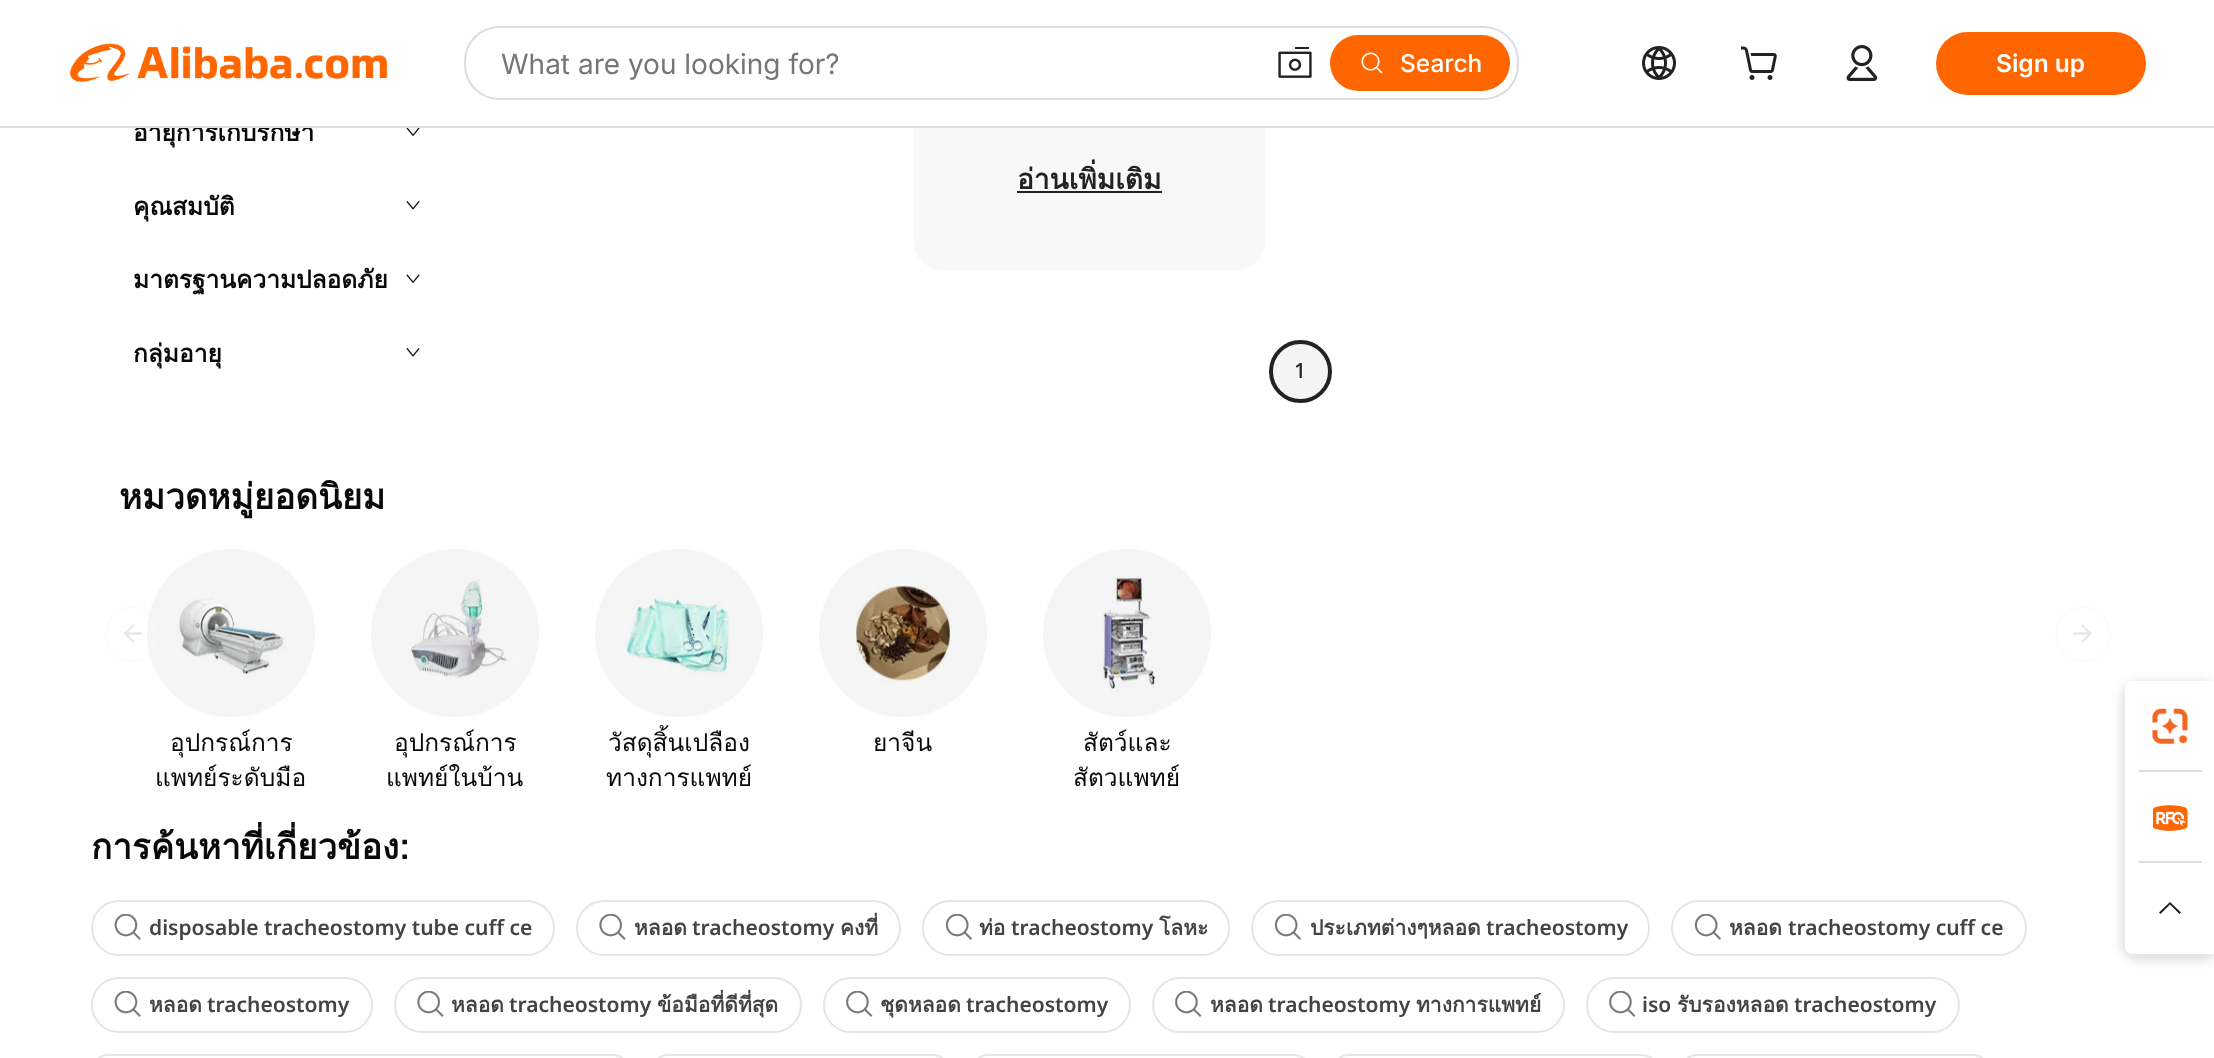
<!DOCTYPE html>
<meta charset="utf-8">
<style>body { margin: 0 } canvas { display: block }</style>
<canvas id="canvas" width="2214" height="1058"></canvas>
<script type="module">
  const canvas = document.getElementById("canvas");
  const g = canvas.getContext("2d");
  g.miterLimit = 4;
  g.fontKerning = "normal";
  function drawText(s, x, y, [font, color]) {
    g.font = font;
    g.fillStyle = color;
    g.fillText(s, x, y);
  }
  function fillBox(x, y, w, h, color) {
    g.fillStyle = color;
    g.fillRect(x, y, w, h);
  }
  function fillRounded(x, y, w, h, r, color) {
    g.fillStyle = color;
    g.beginPath();
    g.roundRect(x, y, w, h, r);
    g.fill();
  }
  async function drawPicture(src, x, y, w, h) {
    const img = new Image();
    img.src = src;
    await img.decode();
    g.drawImage(img, x, y, w, h);
  }

  const s1 = ["bold 24.5px Loma", "#0C0A09"];
  const s2 = ["28px Inter", "#767676"];
  const s3 = ["500 24.5px Inter", "#FFFFFF"];
  const s4 = ["600 24.5px Inter", "#FFFFFF"];
  const s5 = ["bold 28px Loma", "#222222"];
  const s6 = ["500 21px Noto Sans", "#222222"];
  const s7 = ["bold 35px Loma", "#0C0A09"];
  const s8 = ["24.5px Loma", "#0C0A09"];
  const s9 = ["600 21px Noto Sans", "#444444"];
  const s10 = ["bold 21px Loma", "#444444"];

  fillBox(0, 0, 2214, 1058, "#FFFFFF");
  drawText("อายุการเก็บรักษา", 133, 141, s1);
  fillRounded(914, -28, 351, 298, 28, "#F8F8F8");
  fillBox(213, 0, 1052, 126, "#FFFFFF");
  fillBox(0, 126, 2214, 2, "#DDDDDD");
  await drawPicture("pic1.png", 70, 43, 317, 39);
  fillRounded(464, 26, 1055, 74, 35, "#DDDDDD");
  fillRounded(466, 28, 1051, 70, 33, "#FFFFFF");
  drawText("What are you looking for?", 501, 74, s2);
  await drawPicture("pic2.png", 1278, 47, 34, 31);
  fillRounded(1330, 35, 180, 56, 28, "#FF6600");
  await drawPicture("pic3.png", 1361, 52, 22, 22);
  drawText("Search", 1400, 72, s3);
  await drawPicture("pic4.png", 1642, 46, 34, 34);
  await drawPicture("pic5.png", 1740, 46, 37, 34);
  await drawPicture("pic6.png", 1846, 45, 32, 36);
  fillRounded(1936, 32, 210, 63, 31.5, "#FF6600");
  drawText("Sign up", 1996, 72, s4);
  await drawPicture("pic7.png", 406, 128, 14, 8);
  g.save();
  g.beginPath();
  g.rect(133, 170, 102, 73);
  g.clip();
  drawText("คุณสมบัติ", 133, 215, s1);
  g.restore();
  await drawPicture("pic8.png", 406, 201, 14, 9);
  drawText("มาตรฐานความปลอดภัย", 133, 288, s1);
  await drawPicture("pic9.png", 406, 274, 14, 9);
  drawText("กลุ่มอายุ", 133, 362, s1);
  await drawPicture("pic8.png", 406, 348, 14, 9);
  drawText("อ่านเพิ่มเติม", 1017, 189, s5);
  fillBox(1017, 191, 145, 2, "#222222");
  g.fillStyle = "#F4F4F4";
  g.beginPath();
  g.arc(1300.5, 371.5, 29.5, 0, Math.PI * 2);
  g.fill();
  g.strokeStyle = "#222222";
  g.lineWidth = 4;
  g.stroke();
  drawText("1", 1294, 378, s6);
  drawText("หมวดหมู่ยอดนิยม", 119, 509, s7);
  await drawPicture("pic10.png", 147, 549, 168, 168);
  g.beginPath();
  g.arc(133, 634, 27, 0, Math.PI * 2);
  g.strokeStyle = "rgba(231, 229, 228, 0.1)";
  g.lineWidth = 2;
  g.stroke();
  g.beginPath();
  g.moveTo(133, 641.5);
  g.lineTo(125, 633.5);
  g.lineTo(133, 625.5);
  g.moveTo(141, 633.5);
  g.lineTo(125, 633.5);
  g.strokeStyle = "#E7E7E6";
  g.lineWidth = 2.3;
  g.lineCap = "round";
  g.lineJoin = "round";
  g.stroke();
  g.beginPath();
  g.arc(2083, 634, 27, 0, Math.PI * 2);
  g.strokeStyle = "#FDFCFC";
  g.lineWidth = 2;
  g.stroke();
  g.beginPath();
  g.moveTo(2074.5, 633.5);
  g.lineTo(2090.5, 633.5);
  g.moveTo(2082.5, 625.5);
  g.lineTo(2090.5, 633.5);
  g.lineTo(2082.5, 641.5);
  g.strokeStyle = "#E7E7E6";
  g.lineWidth = 2.3;
  g.stroke();
  drawText("อุปกรณ์การ", 170, 751, s8);
  drawText("แพทย์ระดับมือ", 155, 786, s8);
  await drawPicture("pic11.png", 371, 549, 168, 168);
  drawText("อุปกรณ์การ", 394, 751, s8);
  drawText("แพทย์ในบ้าน", 386, 786, s8);
  await drawPicture("pic12.png", 595, 549, 168, 168);
  drawText("วัสดุสิ้นเปลือง", 608, 751, s8);
  drawText("ทางการแพทย์", 606, 786, s8);
  await drawPicture("pic13.png", 819, 549, 168, 168);
  drawText("ยาจีน", 873, 751, s8);
  await drawPicture("pic14.png", 1043, 549, 168, 168);
  drawText("สัตว์และ", 1083, 751, s8);
  drawText("สัตวแพทย์", 1073, 786, s8);
  drawText("การค้นหาที่เกี่ยวข้อง:", 91, 859, s7);
  g.beginPath();
  g.roundRect(92, 901, 462, 54, 27);
  g.strokeStyle = "#E7E5E4";
  g.lineWidth = 2;
  g.lineJoin = "miter";
  g.stroke();
  await drawPicture("pic15.png", 114, 914, 27, 26);
  drawText("disposable tracheostomy tube cuff ce", 149, 935, s9);
  g.beginPath();
  g.roundRect(577, 901, 323, 54, 27);
  g.stroke();
  await drawPicture("pic16.png", 599, 914, 27, 26);
  drawText("หลอด", 634, 935, s10);
  drawText("tracheostomy", 692, 935, s9);
  drawText("คงที่", 840, 935, s10);
  g.beginPath();
  g.roundRect(923, 901, 306, 54, 27);
  g.stroke();
  await drawPicture("pic17.png", 945, 914, 27, 26);
  drawText("ท่อ", 979, 935, s10);
  drawText("tracheostomy", 1011, 935, s9);
  drawText("โลหะ", 1159, 935, s10);
  g.beginPath();
  g.roundRect(1252, 901, 397, 54, 27);
  g.stroke();
  await drawPicture("pic17.png", 1274, 914, 27, 26);
  drawText("ประเภทต่างๆหลอด", 1310, 935, s10);
  drawText("tracheostomy", 1486, 935, s9);
  g.beginPath();
  g.roundRect(1672, 901, 354, 54, 27);
  g.stroke();
  await drawPicture("pic17.png", 1694, 914, 27, 26);
  drawText("หลอด", 1729, 935, s10);
  drawText("tracheostomy cuff ce", 1788, 935, s9);
  g.beginPath();
  g.roundRect(92, 978, 280, 54, 27);
  g.stroke();
  await drawPicture("pic15.png", 114, 991, 27, 26);
  drawText("หลอด", 149, 1012, s10);
  drawText("tracheostomy", 207, 1012, s9);
  g.beginPath();
  g.roundRect(395, 978, 406, 54, 27);
  g.stroke();
  await drawPicture("pic16.png", 417, 991, 27, 26);
  drawText("หลอด", 451, 1012, s10);
  drawText("tracheostomy", 509, 1012, s9);
  drawText("ข้อมือที่ดีที่สุด", 657, 1012, s10);
  g.beginPath();
  g.roundRect(824, 978, 306, 54, 27);
  g.stroke();
  await drawPicture("pic18.png", 846, 991, 27, 26);
  drawText("ชุดหลอด", 880, 1012, s10);
  drawText("tracheostomy", 966, 1012, s9);
  g.beginPath();
  g.roundRect(1153, 978, 411, 54, 27);
  g.stroke();
  await drawPicture("pic18.png", 1175, 991, 27, 26);
  drawText("หลอด", 1210, 1012, s10);
  drawText("tracheostomy", 1268, 1012, s9);
  drawText("ทางการแพทย์", 1416, 1012, s10);
  g.beginPath();
  g.roundRect(1587, 978, 372, 54, 27);
  g.stroke();
  await drawPicture("pic18.png", 1609, 991, 27, 26);
  drawText("iso", 1642, 1012, s9);
  drawText("รับรองหลอด", 1677, 1012, s10);
  drawText("tracheostomy", 1794, 1012, s9);
  g.beginPath();
  g.roundRect(92, 1055, 537, 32, 27);
  g.stroke();
  g.beginPath();
  g.roundRect(652, 1055, 297, 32, 27);
  g.stroke();
  g.beginPath();
  g.roundRect(972, 1055, 338, 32, 27);
  g.stroke();
  g.beginPath();
  g.roundRect(1333, 1055, 325, 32, 27);
  g.stroke();
  g.beginPath();
  g.roundRect(1681, 1055, 308, 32, 27);
  g.stroke();
  g.fillStyle = "rgba(0, 0, 0, 0.12)";
  g.filter = "blur(5px)";
  g.beginPath();
  g.roundRect(2121, 681, 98, 280, 18);
  g.fill();
  g.filter = "none";
  g.fillStyle = "#FFFFFF";
  g.beginPath();
  g.moveTo(2139, 681);
  g.lineTo(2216, 681);
  g.lineTo(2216, 954);
  g.lineTo(2139, 954);
  g.bezierCurveTo(2131.5, 954, 2125, 947.5, 2125, 940);
  g.lineTo(2125, 695);
  g.bezierCurveTo(2125, 687.5, 2131.5, 681, 2139, 681);
  g.closePath();
  g.fill();
  fillRounded(2125, 681, 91, 91, 7, "#FFFFFF");
  await drawPicture("pic19.png", 2152, 708, 36, 36);
  fillBox(2139, 770, 63, 2, "#DDDDDD");
  await drawPicture("pic20.png", 2153, 805, 35, 26);
  fillBox(2139, 861, 63, 2, "#DDDDDD");
  fillRounded(2125, 863, 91, 91, 7, "#FFFFFF");
  g.fillStyle = "#222222";
  g.beginPath();
  g.moveTo(2170, 902);
  g.lineTo(2181, 912.5);
  g.lineTo(2179.5, 914);
  g.lineTo(2170, 904.5);
  g.lineTo(2160.5, 914);
  g.lineTo(2159, 912.5);
  g.closePath();
  g.fill();
</script>
